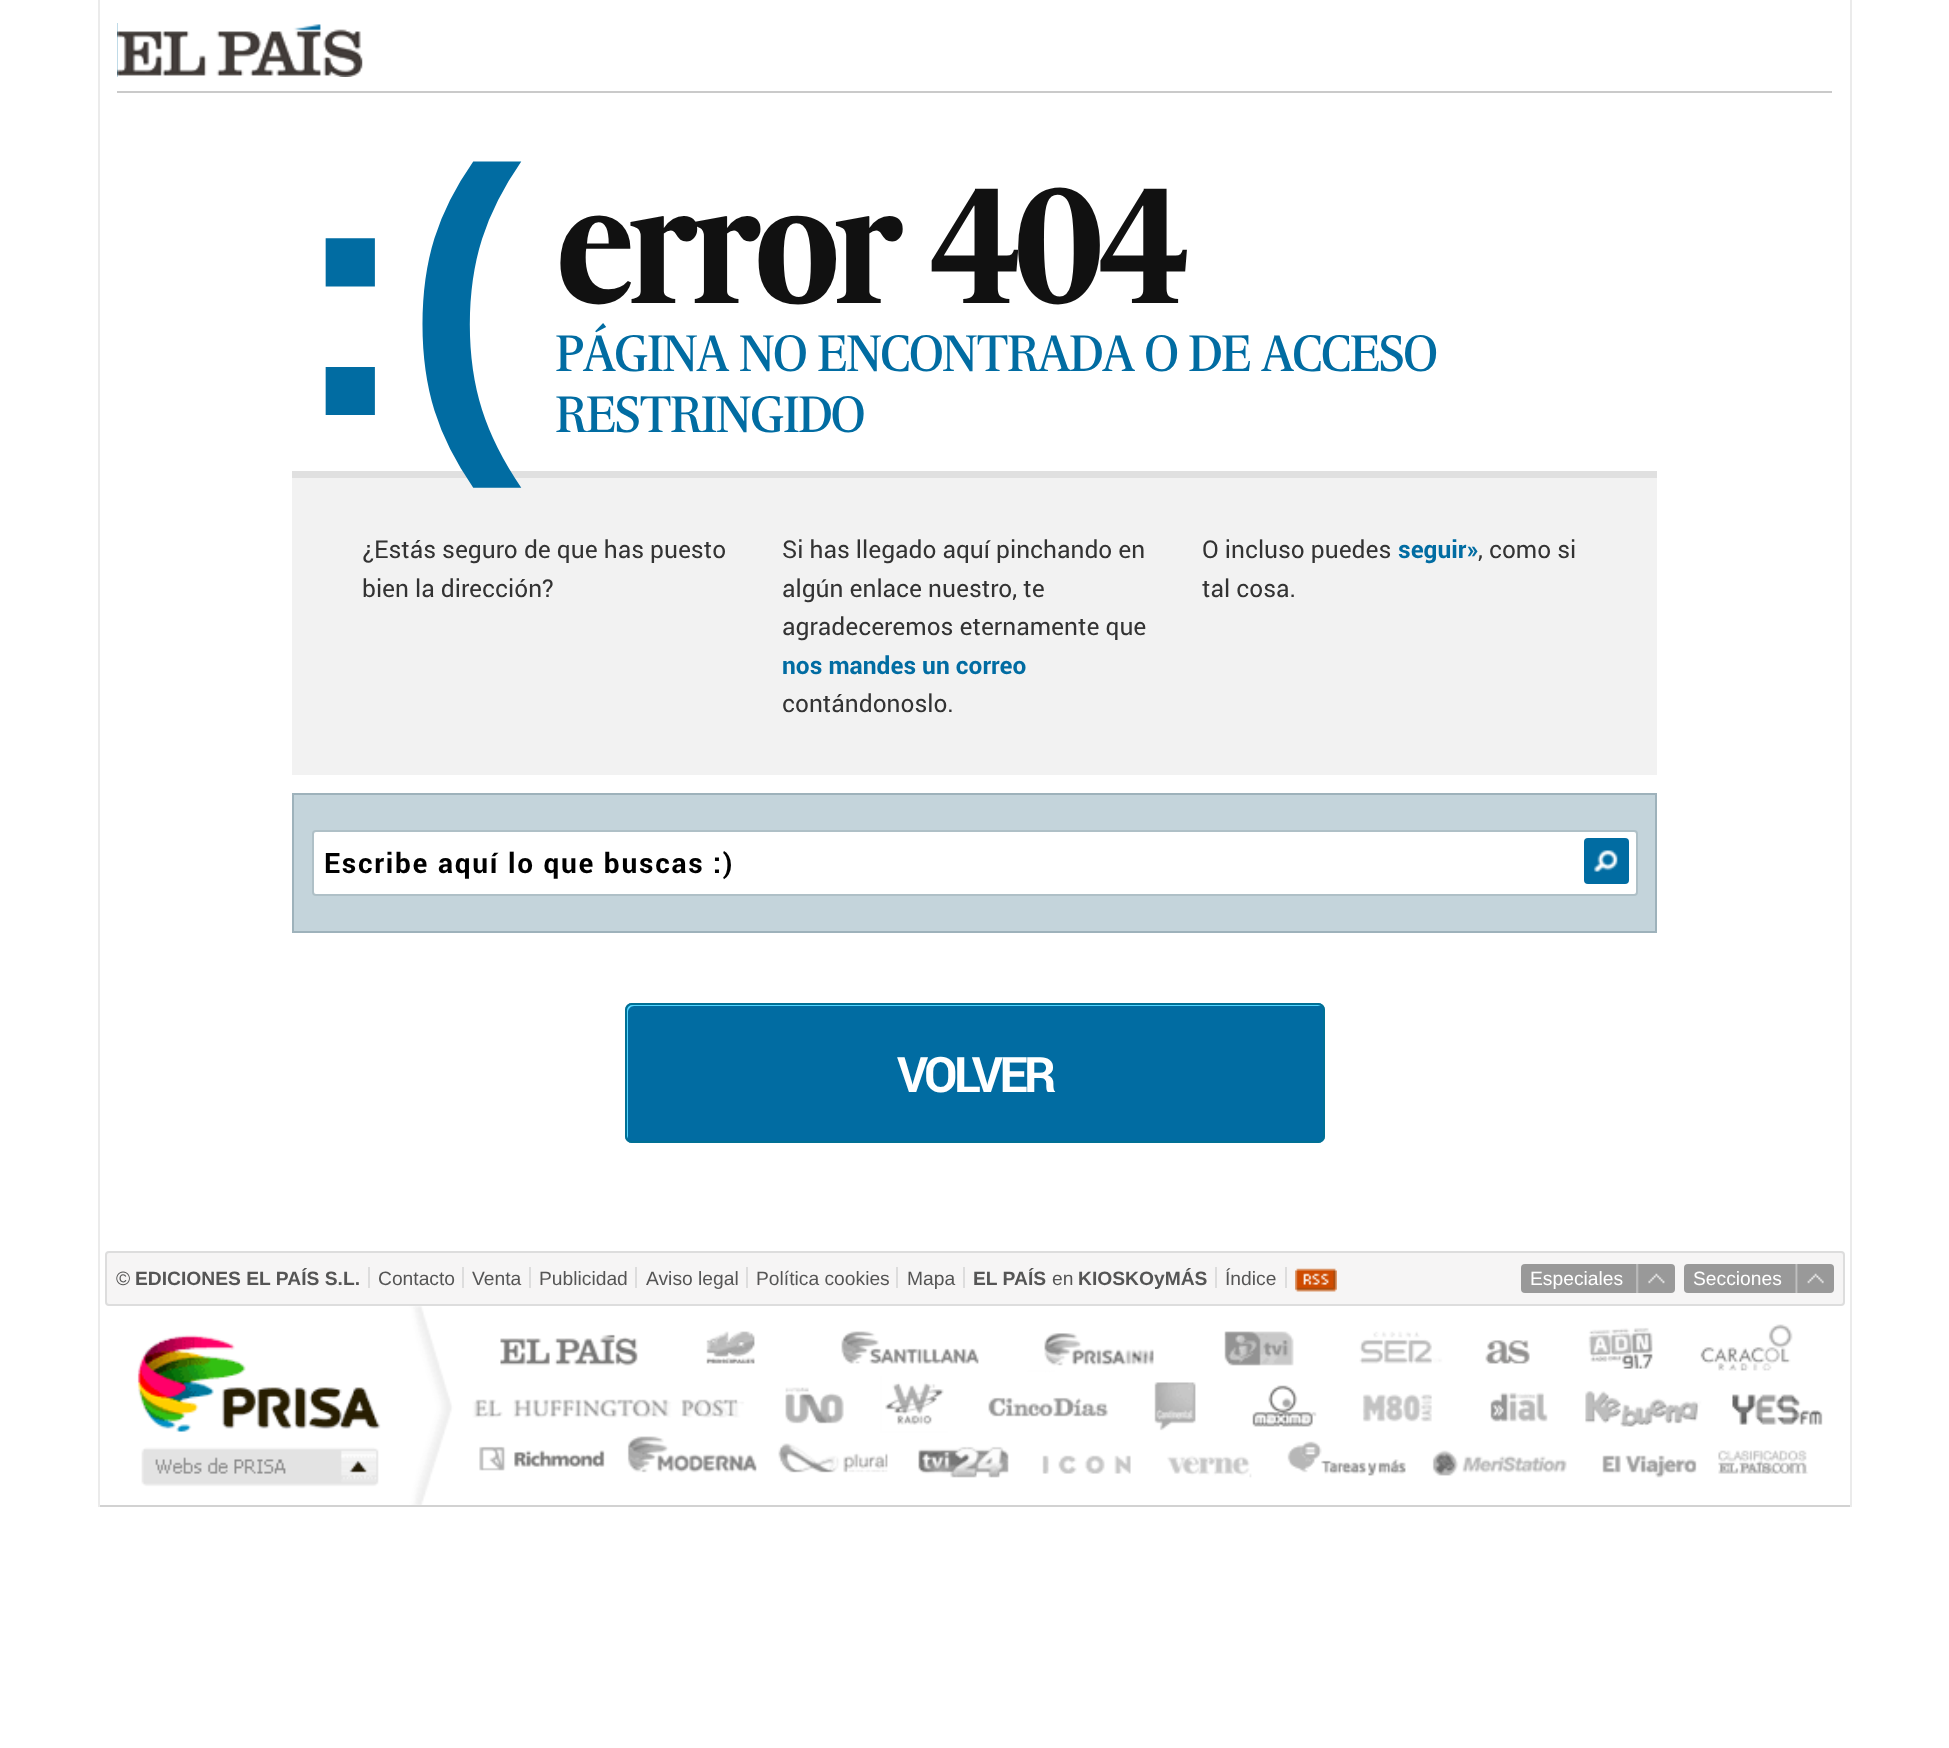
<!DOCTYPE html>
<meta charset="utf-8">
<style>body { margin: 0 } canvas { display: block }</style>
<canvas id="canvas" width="1949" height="1748"></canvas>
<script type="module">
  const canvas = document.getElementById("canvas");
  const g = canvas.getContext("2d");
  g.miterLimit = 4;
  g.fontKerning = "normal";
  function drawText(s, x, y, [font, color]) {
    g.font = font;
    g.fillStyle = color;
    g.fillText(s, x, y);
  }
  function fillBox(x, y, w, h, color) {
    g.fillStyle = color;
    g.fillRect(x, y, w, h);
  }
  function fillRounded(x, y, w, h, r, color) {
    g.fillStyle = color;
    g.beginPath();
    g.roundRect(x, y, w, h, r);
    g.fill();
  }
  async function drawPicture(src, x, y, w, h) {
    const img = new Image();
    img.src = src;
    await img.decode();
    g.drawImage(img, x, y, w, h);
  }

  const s1 = ["bold 350px Liberation Sans", "#016CA2"];
  const s2 = ["bold 157.5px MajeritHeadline", "#111111"];
  const s3 = ["49px MajeritHeadline", "#016CA2"];
  const s4 = ["24.5px Roboto", "#333333"];
  const s5 = ["bold 24.5px Roboto", "#016CA2"];
  const s6 = ["bold 28px Roboto", "#000000"];
  const s7 = ["bold 49px Roboto", "#FFFFFF"];
  const s8 = ["19.25px Liberation Sans", "#555555"];
  const s9 = ["bold 19.25px Liberation Sans", "#555555"];
  const s10 = ["19.25px Liberation Sans", "#FFFFFF"];

  fillBox(0, 0, 1949, 1748, "#FFFFFF");
  fillBox(1850, 0, 2, 1507, "#EBEBEB");
  fillBox(98, 0, 2, 1507, "#EBEBEB");
  fillBox(117, 91, 1715, 2, "#CACACA");
  fillBox(117, 23, 204, 54, "#016CA2");
  await drawPicture("pic1.png", 117, 23, 246, 54);
  fillBox(292, 478, 1365, 297, "#F2F2F2");
  fillBox(292, 471, 1365, 7, "#E0E0E0");
  g.letterSpacing = "-3.5px";
  drawText(":(", 292, 415, s1);
  g.letterSpacing = "-8.75px";
  drawText("error 404", 555, 303, s2);
  g.letterSpacing = "-1.75px";
  drawText("PÁGINA NO ENCONTRADA O DE ACCESO", 555, 371, s3);
  drawText("RESTRINGIDO", 555, 432, s3);
  g.letterSpacing = "0px";
  drawText("¿Estás seguro de que has puesto", 362, 558, s4);
  drawText("bien la dirección?", 362, 597, s4);
  drawText("Si has llegado aquí pinchando en", 782, 558, s4);
  drawText("algún enlace nuestro, te", 782, 597, s4);
  drawText("agradeceremos eternamente que", 782, 635, s4);
  drawText("nos mandes un correo", 782, 674, s5);
  drawText("contándonoslo.", 782, 712, s4);
  drawText("O incluso puedes", 1202, 558, s4);
  drawText("seguir»", 1398, 558, s5);
  drawText(", como si", 1478, 558, s4);
  drawText("tal cosa.", 1202, 597, s4);
  g.fillStyle = "#C4D4DB";
  g.beginPath();
  g.rect(293, 794, 1363, 138);
  g.fill();
  g.strokeStyle = "#9EB2BB";
  g.lineWidth = 2;
  g.stroke();
  g.fillStyle = "#FFFFFF";
  g.beginPath();
  g.roundRect(313, 831, 1324, 64, 3);
  g.fill();
  g.strokeStyle = "#AFC0C7";
  g.stroke();
  g.letterSpacing = "1.75px";
  drawText("Escribe aquí lo que buscas :)", 324, 873, s6);
  fillRounded(1584, 838, 45, 46, 4, "#016CA2");
  await drawPicture("pic2.png", 1593, 850, 25, 22);
  fillRounded(625, 1003, 700, 140, 7, "#016CA2");
  g.fillStyle = "#55D5FF";
  g.beginPath();
  g.moveTo(634, 1006);
  g.lineTo(1320, 1006);
  g.lineTo(1322, 1006);
  g.bezierCurveTo(1321, 1006, 1319, 1005, 1318, 1005);
  g.lineTo(632, 1005);
  g.bezierCurveTo(629, 1005, 627, 1007, 627, 1010);
  g.lineTo(627, 1136);
  g.bezierCurveTo(627, 1137, 628, 1139, 628, 1140);
  g.lineTo(628, 1138);
  g.lineTo(628, 1012);
  g.bezierCurveTo(628, 1009, 631, 1006, 634, 1006);
  g.closePath();
  g.fill();
  g.beginPath();
  g.roundRect(626, 1004, 698, 138, 6);
  g.strokeStyle = "#007095";
  g.stroke();
  g.letterSpacing = "-3.5px";
  drawText("VOLVER", 897, 1092, s7);
  g.fillStyle = "#F6F5F5";
  g.beginPath();
  g.roundRect(106, 1252, 1738, 53, 3);
  g.fill();
  g.strokeStyle = "#DDDDDD";
  g.stroke();
  g.letterSpacing = "0px";
  drawText("©", 116, 1285, s8);
  drawText("EDICIONES EL PAÍS S.L.", 135, 1285, s9);
  fillBox(368, 1267, 2, 21, "#DDDDDD");
  drawText("Contacto", 378, 1285, s8);
  fillBox(462, 1267, 2, 21, "#DDDDDD");
  drawText("Venta", 472, 1285, s8);
  fillBox(529, 1267, 2, 21, "#DDDDDD");
  drawText("Publicidad", 539, 1285, s8);
  fillBox(635, 1267, 2, 21, "#DDDDDD");
  drawText("Aviso legal", 646, 1285, s8);
  fillBox(746, 1267, 2, 21, "#DDDDDD");
  drawText("Política cookies", 756, 1285, s8);
  fillBox(896, 1267, 2, 21, "#DDDDDD");
  drawText("Mapa", 907, 1285, s8);
  fillBox(963, 1267, 2, 21, "#DDDDDD");
  drawText("EL PAÍS", 973, 1285, s9);
  drawText("en", 1052, 1285, s8);
  drawText("KIOSKOyMÁS", 1078, 1285, s9);
  fillBox(1215, 1267, 2, 21, "#DDDDDD");
  drawText("Índice", 1225, 1285, s8);
  fillBox(1285, 1267, 2, 21, "#DDDDDD");
  await drawPicture("pic3.png", 1295, 1268, 42, 24);
  fillRounded(1521, 1264, 154, 29, 4, "#999999");
  await drawPicture("pic4.png", 1636, 1264, 29, 29);
  drawText("Especiales", 1530, 1285, s10);
  fillRounded(1684, 1264, 150, 29, 4, "#999999");
  await drawPicture("pic5.png", 1795, 1264, 29, 29);
  drawText("Secciones", 1693, 1285, s10);
  await drawPicture("pic6.png", 137, 1306, 1686, 199);
  fillBox(100, 1505, 1750, 2, "#D2D2D2");
</script>
